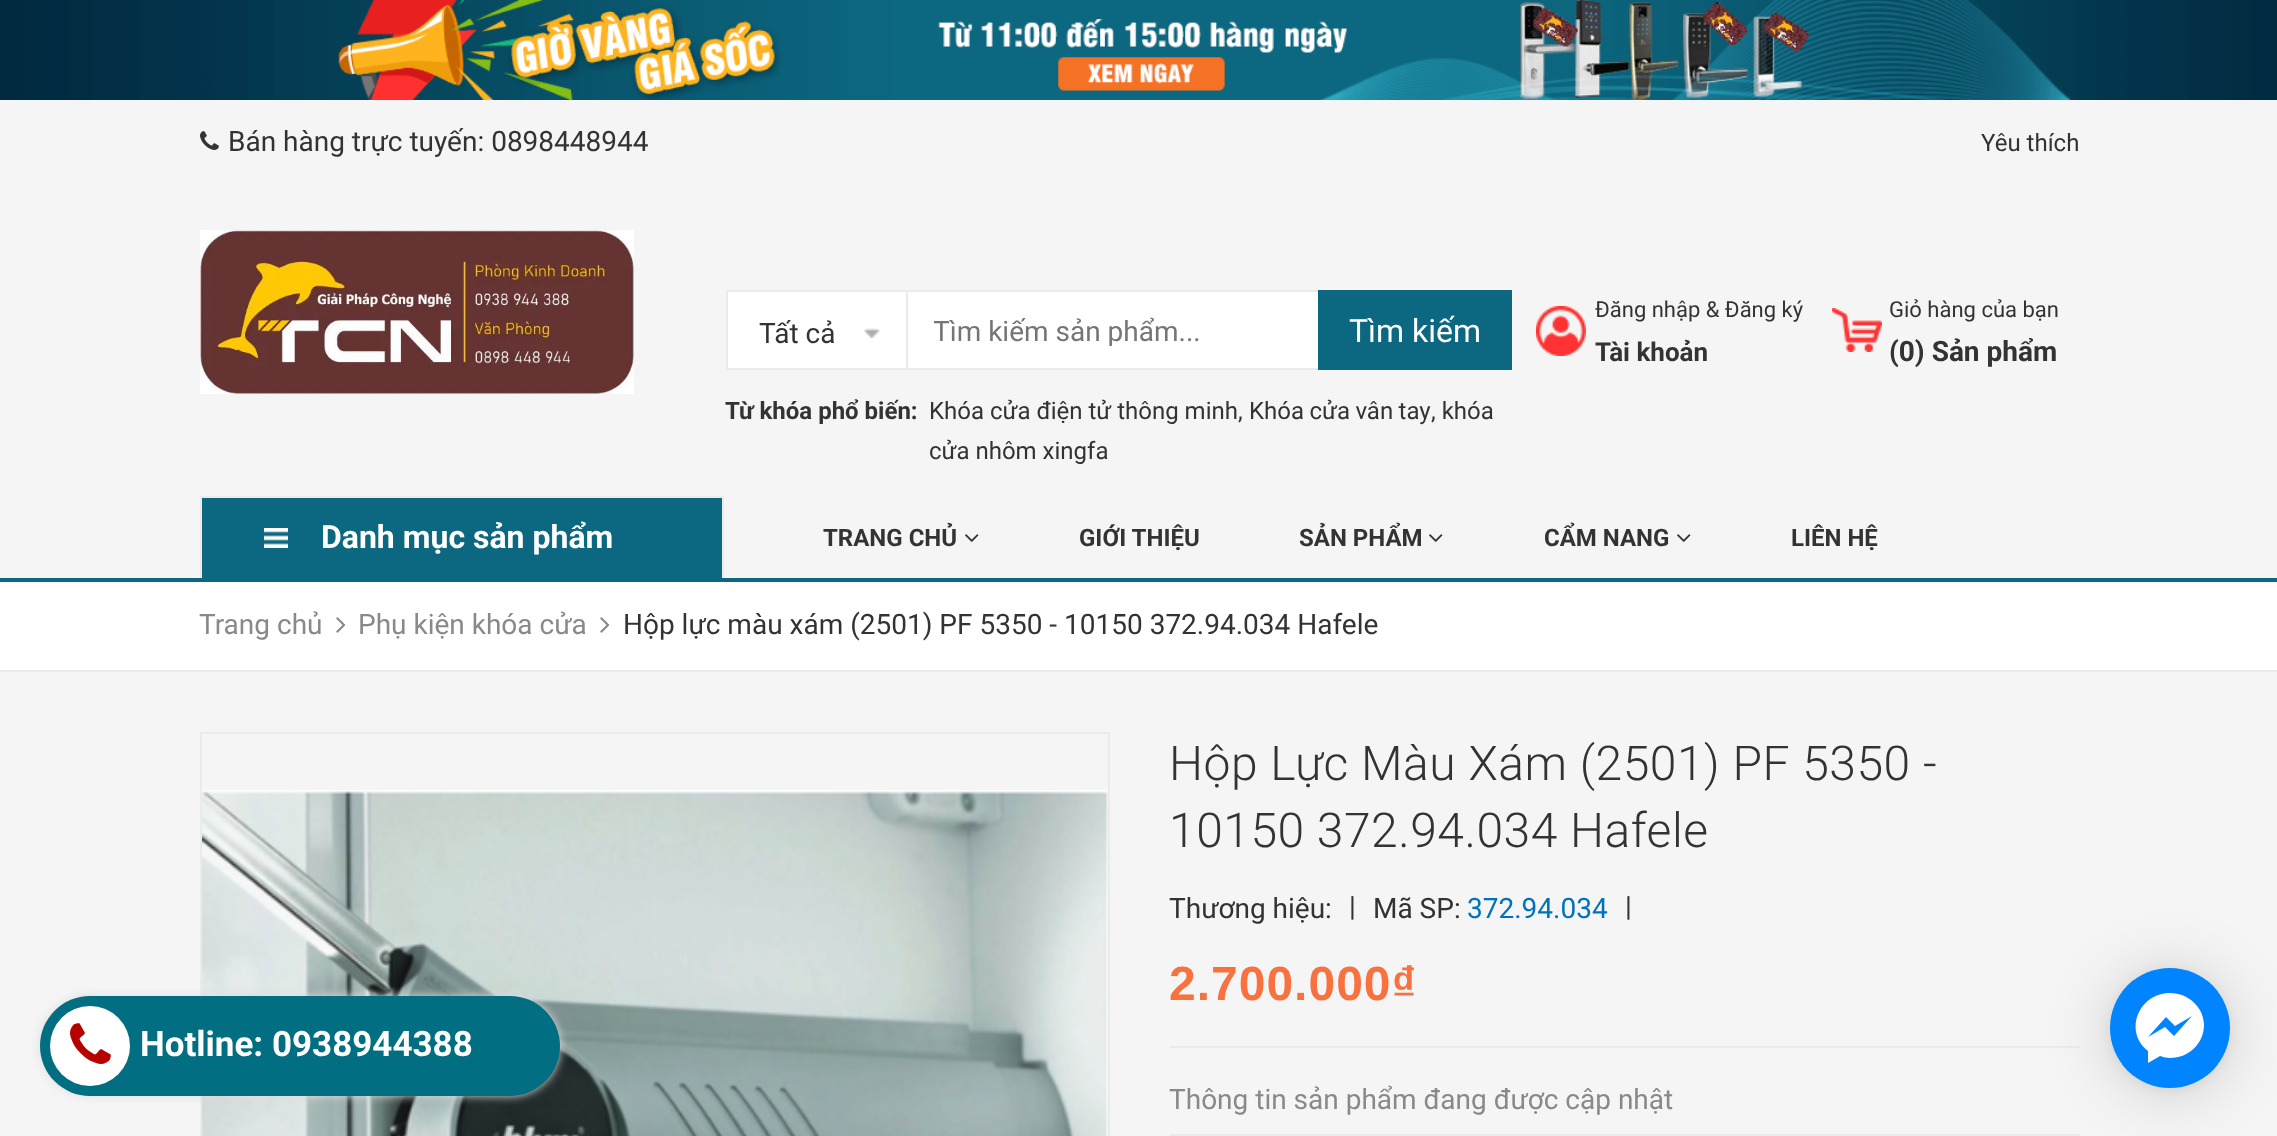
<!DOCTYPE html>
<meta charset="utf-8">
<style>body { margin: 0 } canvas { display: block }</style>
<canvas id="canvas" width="2277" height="1136"></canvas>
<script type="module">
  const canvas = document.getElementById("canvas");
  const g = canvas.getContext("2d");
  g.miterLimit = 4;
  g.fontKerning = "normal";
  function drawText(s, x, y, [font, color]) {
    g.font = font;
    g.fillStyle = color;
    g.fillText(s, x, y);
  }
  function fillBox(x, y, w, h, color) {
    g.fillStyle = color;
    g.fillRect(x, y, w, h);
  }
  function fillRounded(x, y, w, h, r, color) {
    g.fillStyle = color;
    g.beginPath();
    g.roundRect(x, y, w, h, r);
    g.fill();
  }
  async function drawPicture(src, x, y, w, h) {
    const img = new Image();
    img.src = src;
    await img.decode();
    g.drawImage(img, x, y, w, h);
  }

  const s1 = ["28px Roboto", "#333333"];
  const s2 = ["24px Roboto", "#333333"];
  const s3 = ["28px Roboto", "#757575"];
  const s4 = ["32px Roboto", "#FFFFFF"];
  const s5 = ["bold 24px Roboto", "#333333"];
  const s6 = ["22px Roboto", "#333333"];
  const s7 = ["bold 26px Roboto", "#333333"];
  const s8 = ["bold 28px Roboto", "#333333"];
  const s9 = ["bold 32px Roboto", "#FFFFFF"];
  const s10 = ["28px Roboto", "#898989"];
  const s11 = ["bold 35px Roboto", "#FFFFFF"];
  const s12 = ["300 48px Roboto", "#333333"];
  const s13 = ["28px Roboto", "#0072BC"];
  const s14 = ["bold 48px Liberation Sans", "#F7723F"];

  fillBox(0, 0, 2277, 1136, "#F5F5F5");
  await drawPicture("pic1.png", 0, 0, 2277, 100);
  await drawPicture("pic2.png", 200, 131, 19, 19);
  drawText("Bán hàng trực tuyến: 0898448944", 228, 151, s1);
  drawText("Yêu thích", 1981, 151, s2);
  await drawPicture("pic3.png", 200, 230, 434, 164);
  g.fillStyle = "#FFFFFF";
  g.beginPath();
  g.rect(727, 291, 592, 78);
  g.fill();
  g.strokeStyle = "#EBEBEB";
  g.lineWidth = 2;
  g.stroke();
  fillBox(906, 290, 2, 80, "#EBEBEB");
  drawText("Tất cả", 759, 343, s1);
  await drawPicture("pic4.png", 864, 328, 16, 10);
  g.save();
  g.beginPath();
  g.rect(934, 314, 336, 32);
  g.clip();
  drawText("Tìm kiếm sản phẩm...", 933, 341, s3);
  g.restore();
  fillBox(1318, 290, 194, 80, "#0C6880");
  drawText("Tìm kiếm", 1349, 342, s4);
  drawText("Từ khóa phổ biến:", 725, 419, s5);
  drawText("Khóa cửa điện tử thông minh,", 929, 419, s2);
  g.wordSpacing = "-0.5px";
  drawText("Khóa cửa vân tay", 1249, 419, s2);
  g.wordSpacing = "0px";
  drawText(", khóa", 1431, 419, s2);
  drawText("cửa nhôm xingfa", 929, 459, s2);
  await drawPicture("pic5.png", 1536, 306, 50, 50);
  drawText("Đăng nhập & Đăng ký", 1595, 317, s6);
  drawText("Tài khoản", 1595, 361, s7);
  await drawPicture("pic6.png", 1832, 308, 50, 44);
  drawText("Giỏ hàng của bạn", 1889, 317, s6);
  drawText("(0) Sản phẩm", 1889, 361, s8);
  fillBox(0, 578, 2277, 4, "#0C6880");
  fillBox(202, 498, 520, 80, "#0C6880");
  fillBox(200, 496, 524, 2, "#EBEBEB");
  fillBox(722, 496, 2, 82, "#EBEBEB");
  fillBox(200, 496, 2, 82, "#EBEBEB");
  await drawPicture("pic7.png", 264, 528, 24, 20);
  drawText("Danh mục sản phẩm", 321, 548, s9);
  drawText("TRANG CHỦ", 823, 546, s5);
  await drawPicture("pic8.png", 965, 534, 14, 8);
  drawText("GIỚI THIỆU", 1079, 546, s5);
  drawText("SẢN PHẨM", 1299, 546, s5);
  await drawPicture("pic8.png", 1429, 534, 14, 8);
  drawText("CẨM NANG", 1544, 546, s5);
  await drawPicture("pic8.png", 1677, 534, 14, 8);
  drawText("LIÊN HỆ", 1791, 546, s5);
  fillBox(0, 582, 2277, 88, "#FFFFFF");
  fillBox(0, 670, 2277, 2, "#EBEBEB");
  drawText("Trang chủ", 199, 634, s10);
  await drawPicture("pic9.png", 336, 617, 10, 16);
  drawText("Phụ kiện khóa cửa", 358, 634, s10);
  await drawPicture("pic9.png", 600, 617, 10, 16);
  drawText("Hộp lực màu xám (2501) PF 5350 - 10150 372.94.034 Hafele", 623, 634, s1);
  g.strokeRect(201, 733, 908, 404);
  await drawPicture("pic11.png", 202, 790, 906, 346);
  g.fillStyle = "#DDDDDD";
  g.filter = "blur(5px)";
  g.beginPath();
  g.roundRect(40, 996, 520, 100, 50);
  g.fill();
  g.filter = "none";
  fillRounded(40, 996, 520, 100, 50, "#026E81");
  g.fillStyle = "#FFFFFF";
  g.beginPath();
  g.arc(90, 1046, 40, 0, Math.PI * 2);
  g.fill();
  await drawPicture("pic10.png", 70, 1023, 41, 41);
  drawText("Hotline: 0938944388", 140, 1056, s11);
  g.letterSpacing = "0.5px";
  drawText("Hộp Lực Màu Xám (2501) PF 5350 -", 1169, 780, s12);
  drawText("10150 372.94.034 Hafele", 1169, 847, s12);
  g.letterSpacing = "0px";
  drawText("Thương hiệu:", 1169, 918, s1);
  drawText("|", 1349, 916, s1);
  drawText("Mã SP:", 1373, 918, s1);
  drawText("372.94.034", 1467, 918, s13);
  drawText("|", 1625, 916, s1);
  fillBox(1170, 1046, 910, 2, "#EBEBEB");
  g.letterSpacing = "1px";
  drawText("2.700.000₫", 1169, 1000, s14);
  fillBox(1170, 1134, 910, 2, "#EBEBEB");
  g.letterSpacing = "0px";
  drawText("Thông tin sản phẩm đang được cập nhật", 1169, 1109, s10);
  g.fillStyle = "rgba(0, 0, 0, 0.16)";
  g.filter = "blur(32px)";
  g.beginPath();
  g.roundRect(2110, 972, 120, 120, 60);
  g.fill();
  g.filter = "none";
  g.fillStyle = "rgba(0, 0, 0, 0.06)";
  g.filter = "blur(6px)";
  g.beginPath();
  g.roundRect(2110, 970, 120, 120, 60);
  g.fill();
  g.filter = "none";
  g.fillStyle = "#0084FF";
  g.beginPath();
  g.arc(2170, 1028, 60, 0, Math.PI * 2);
  g.fill();
  g.save();
  g.beginPath();
  g.roundRect(2110, 968, 120, 120, 60);
  g.clip();
  fillBox(2122, 980, 96, 96, "#0084FF");
  g.restore();
  g.fillStyle = "#FFFFFF";
  g.beginPath();
  g.moveTo(2170, 993);
  g.bezierCurveTo(2139, 993, 2123, 1031, 2148, 1051);
  g.lineTo(2148, 1063);
  g.lineTo(2160, 1056);
  g.bezierCurveTo(2163, 1057, 2167, 1058, 2170, 1058);
  g.bezierCurveTo(2189, 1058, 2204, 1043, 2204, 1025);
  g.bezierCurveTo(2204, 1008, 2189, 993, 2170, 993);
  g.closePath();
  g.moveTo(2174, 1036);
  g.lineTo(2165, 1027);
  g.lineTo(2148, 1037);
  g.lineTo(2166, 1017);
  g.lineTo(2175, 1026);
  g.lineTo(2192, 1016);
  g.closePath();
  g.fill();
</script>
